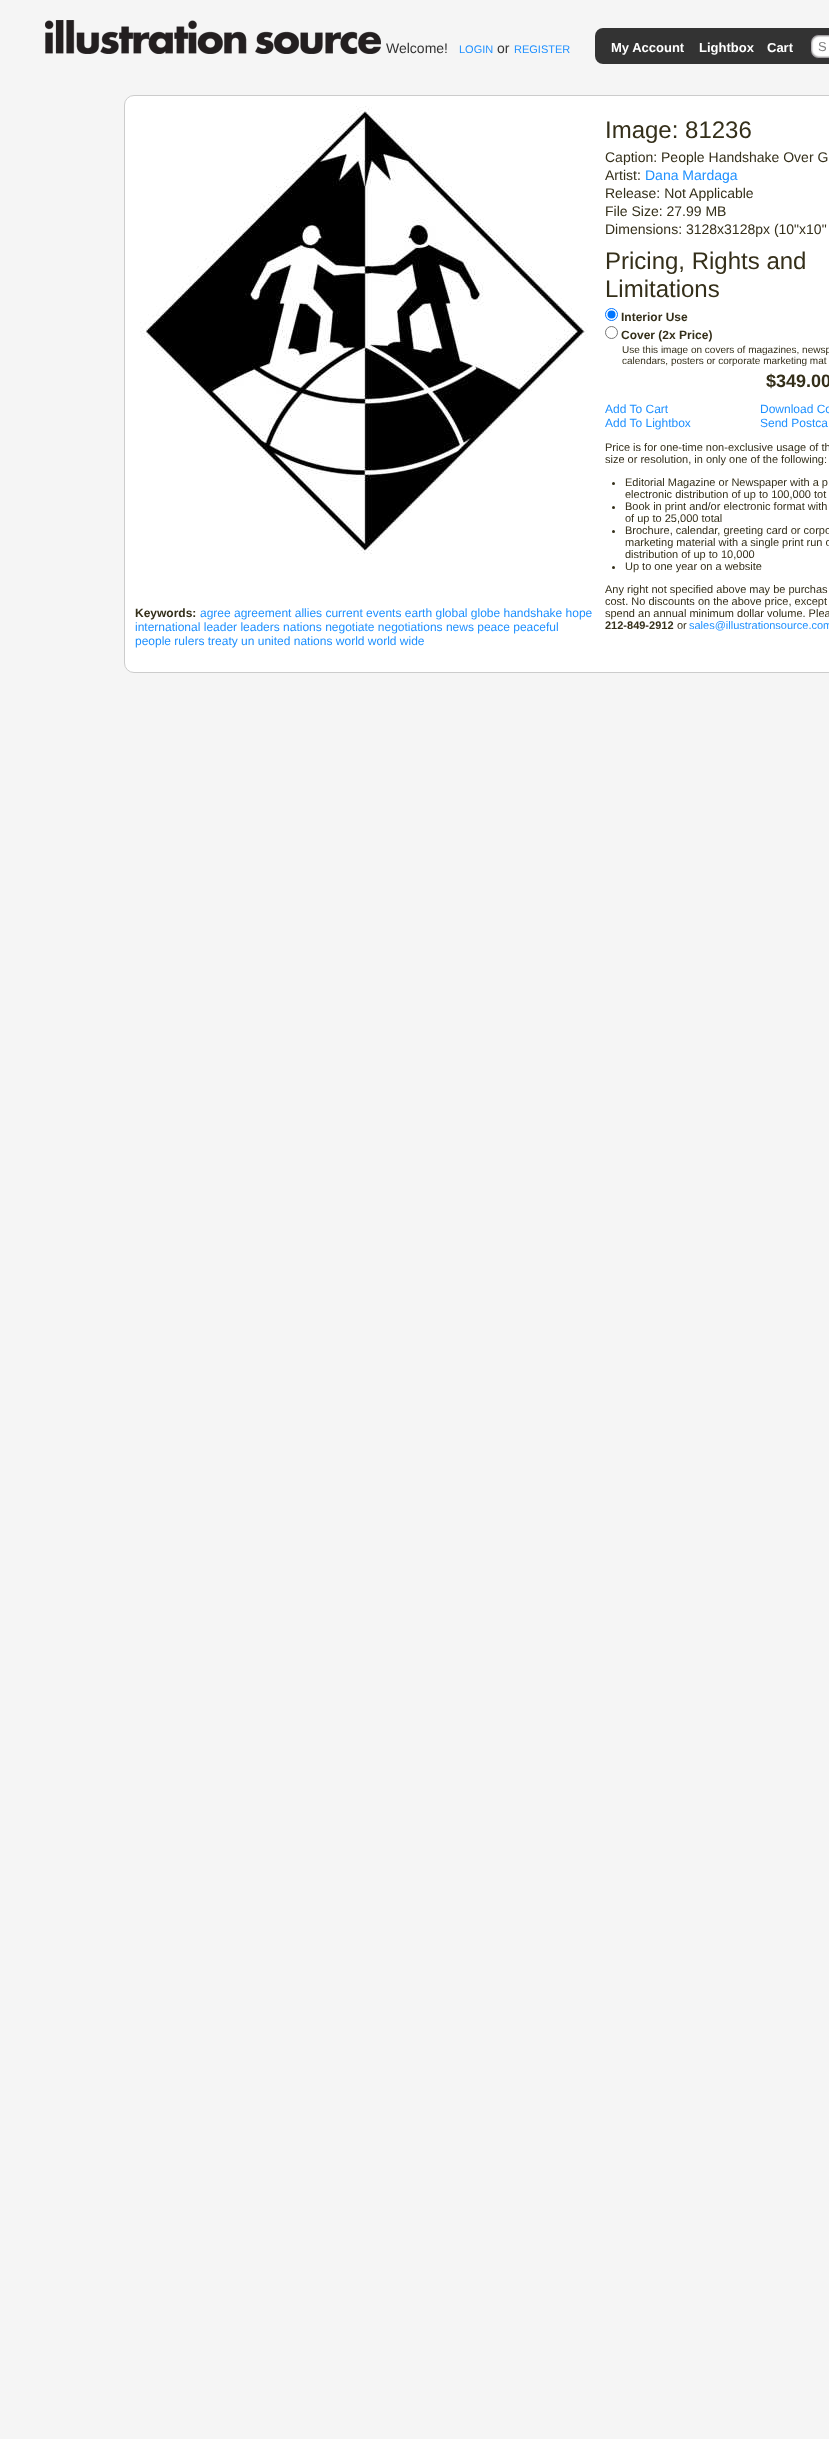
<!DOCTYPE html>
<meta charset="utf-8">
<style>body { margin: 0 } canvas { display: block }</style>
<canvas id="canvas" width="829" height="2439"></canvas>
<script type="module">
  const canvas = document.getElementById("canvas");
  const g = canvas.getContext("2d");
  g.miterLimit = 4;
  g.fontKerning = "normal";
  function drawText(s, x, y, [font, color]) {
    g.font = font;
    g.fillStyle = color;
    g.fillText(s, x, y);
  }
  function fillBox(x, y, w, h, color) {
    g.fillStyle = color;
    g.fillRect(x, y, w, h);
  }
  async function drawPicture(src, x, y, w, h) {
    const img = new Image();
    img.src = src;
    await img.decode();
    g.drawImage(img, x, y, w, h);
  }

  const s1 = ["14px Liberation Sans", "#333333"];
  const s2 = ["11px Liberation Sans", "#1E90FF"];
  const s3 = ["bold 13px Liberation Sans", "#FFFFFF"];
  const s4 = ["13px Liberation Sans", "#808080"];
  const s5 = ["bold 12px Liberation Sans", "#342F1A"];
  const s6 = ["12px Liberation Sans", "#1E90FF"];
  const s7 = ["24px Liberation Sans", "#342F1A"];
  const s8 = ["14px Liberation Sans", "#342F1A"];
  const s9 = ["14px Liberation Sans", "#1E90FF"];
  const s10 = ["10px Liberation Sans", "#342F1A"];
  const s11 = ["bold 18px Liberation Sans", "#342F1A"];
  const s12 = ["11px Liberation Sans", "#342F1A"];
  const s13 = ["bold 11px Liberation Sans", "#342F1A"];

  fillBox(0, 0, 829, 2439, "#F5F5F5");
  await drawPicture("pic1.png", 45, 20, 336, 34);
  drawText("Welcome!", 386, 53, s1);
  drawText("LOGIN", 459, 53, s2);
  drawText("or", 497, 53, s1);
  drawText("REGISTER", 514, 53, s2);
  fillBox(611, 28, 218, 36, "#333333");
  await drawPicture("pic2.png", 595, 28, 16, 36);
  drawText("My Account", 611, 52, s3);
  drawText("Lightbox", 699, 52, s3);
  drawText("Cart", 767, 52, s3);
  await drawPicture("pic3.png", 810, 34, 19, 25);
  drawText("S", 818, 51, s4);
  g.fillStyle = "#FFFFFF";
  g.beginPath();
  g.roundRect(124.5, 95.5, 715, 577, 9.5);
  g.fill();
  g.strokeStyle = "#CCCCCC";
  g.stroke();
  await drawPicture("pic4.png", 140, 106, 448, 448);
  drawText("Keywords:", 135, 617, s5);
  drawText("agree agreement allies current events earth global globe handshake hope", 200, 617, s6);
  drawText("international leader leaders nations negotiate negotiations news peace peaceful", 135, 631, s6);
  drawText("people rulers treaty un united nations world world wide", 135, 645, s6);
  drawText("Image: 81236", 605, 138, s7);
  drawText("Caption: People Handshake Over G", 605, 162, s8);
  drawText("Artist:", 605, 180, s8);
  drawText("Dana Mardaga", 645, 180, s9);
  drawText("Release: Not Applicable", 605, 198, s8);
  drawText("File Size: 27.99 MB", 605, 216, s8);
  drawText("Dimensions: 3128x3128px (10\"x10\"", 605, 234, s8);
  drawText("Pricing, Rights and", 605, 269, s7);
  drawText("Limitations", 605, 297, s7);
  g.beginPath();
  g.arc(611.5, 314.5, 6, 0, Math.PI * 2);
  g.strokeStyle = "#0075FF";
  g.stroke();
  g.fillStyle = "#0075FF";
  g.beginPath();
  g.arc(611.5, 314.5, 4, 0, Math.PI * 2);
  g.fill();
  drawText("Interior Use", 621, 321, s5);
  g.beginPath();
  g.arc(611.5, 332.5, 6, 0, Math.PI * 2);
  g.strokeStyle = "#767676";
  g.stroke();
  drawText("Cover (2x Price)", 621, 339, s5);
  drawText("Use this image on covers of magazines, newsp", 622, 353, s10);
  drawText("calendars, posters or corporate marketing mat", 622, 364, s10);
  drawText("$349.00", 766, 387, s11);
  drawText("Add To Cart", 605, 413, s6);
  drawText("Download Co", 760, 413, s6);
  drawText("Add To Lightbox", 605, 427, s6);
  drawText("Send Postca", 760, 427, s6);
  drawText("Price is for one-time non-exclusive usage of th", 605, 451, s12);
  drawText("size or resolution, in only one of the following:", 605, 463, s12);
  g.beginPath();
  g.arc(613.5, 483.5, 1.5, 0, Math.PI * 2);
  g.fill();
  drawText("Editorial Magazine or Newspaper with a p", 625, 486, s12);
  drawText("electronic distribution of up to 100,000 tot", 625, 498, s12);
  g.beginPath();
  g.arc(613.5, 507.5, 1.5, 0, Math.PI * 2);
  g.fill();
  drawText("Book in print and/or electronic format with", 625, 510, s12);
  drawText("of up to 25,000 total", 625, 522, s12);
  g.beginPath();
  g.arc(613.5, 531.5, 1.5, 0, Math.PI * 2);
  g.fill();
  drawText("Brochure, calendar, greeting card or corpo", 625, 534, s12);
  drawText("marketing material with a single print run o", 625, 546, s12);
  drawText("distribution of up to 10,000", 625, 558, s12);
  g.beginPath();
  g.arc(613.5, 567.5, 1.5, 0, Math.PI * 2);
  g.fill();
  drawText("Up to one year on a website", 625, 570, s12);
  drawText("Any right not specified above may be purchas", 605, 593, s12);
  drawText("cost. No discounts on the above price, except", 605, 605, s12);
  drawText("spend an annual minimum dollar volume. Plea", 605, 617, s12);
  drawText("212-849-2912", 605, 629, s13);
  drawText("or", 677, 629, s12);
  drawText("sales@illustrationsource.com", 689, 629, s2);
</script>
